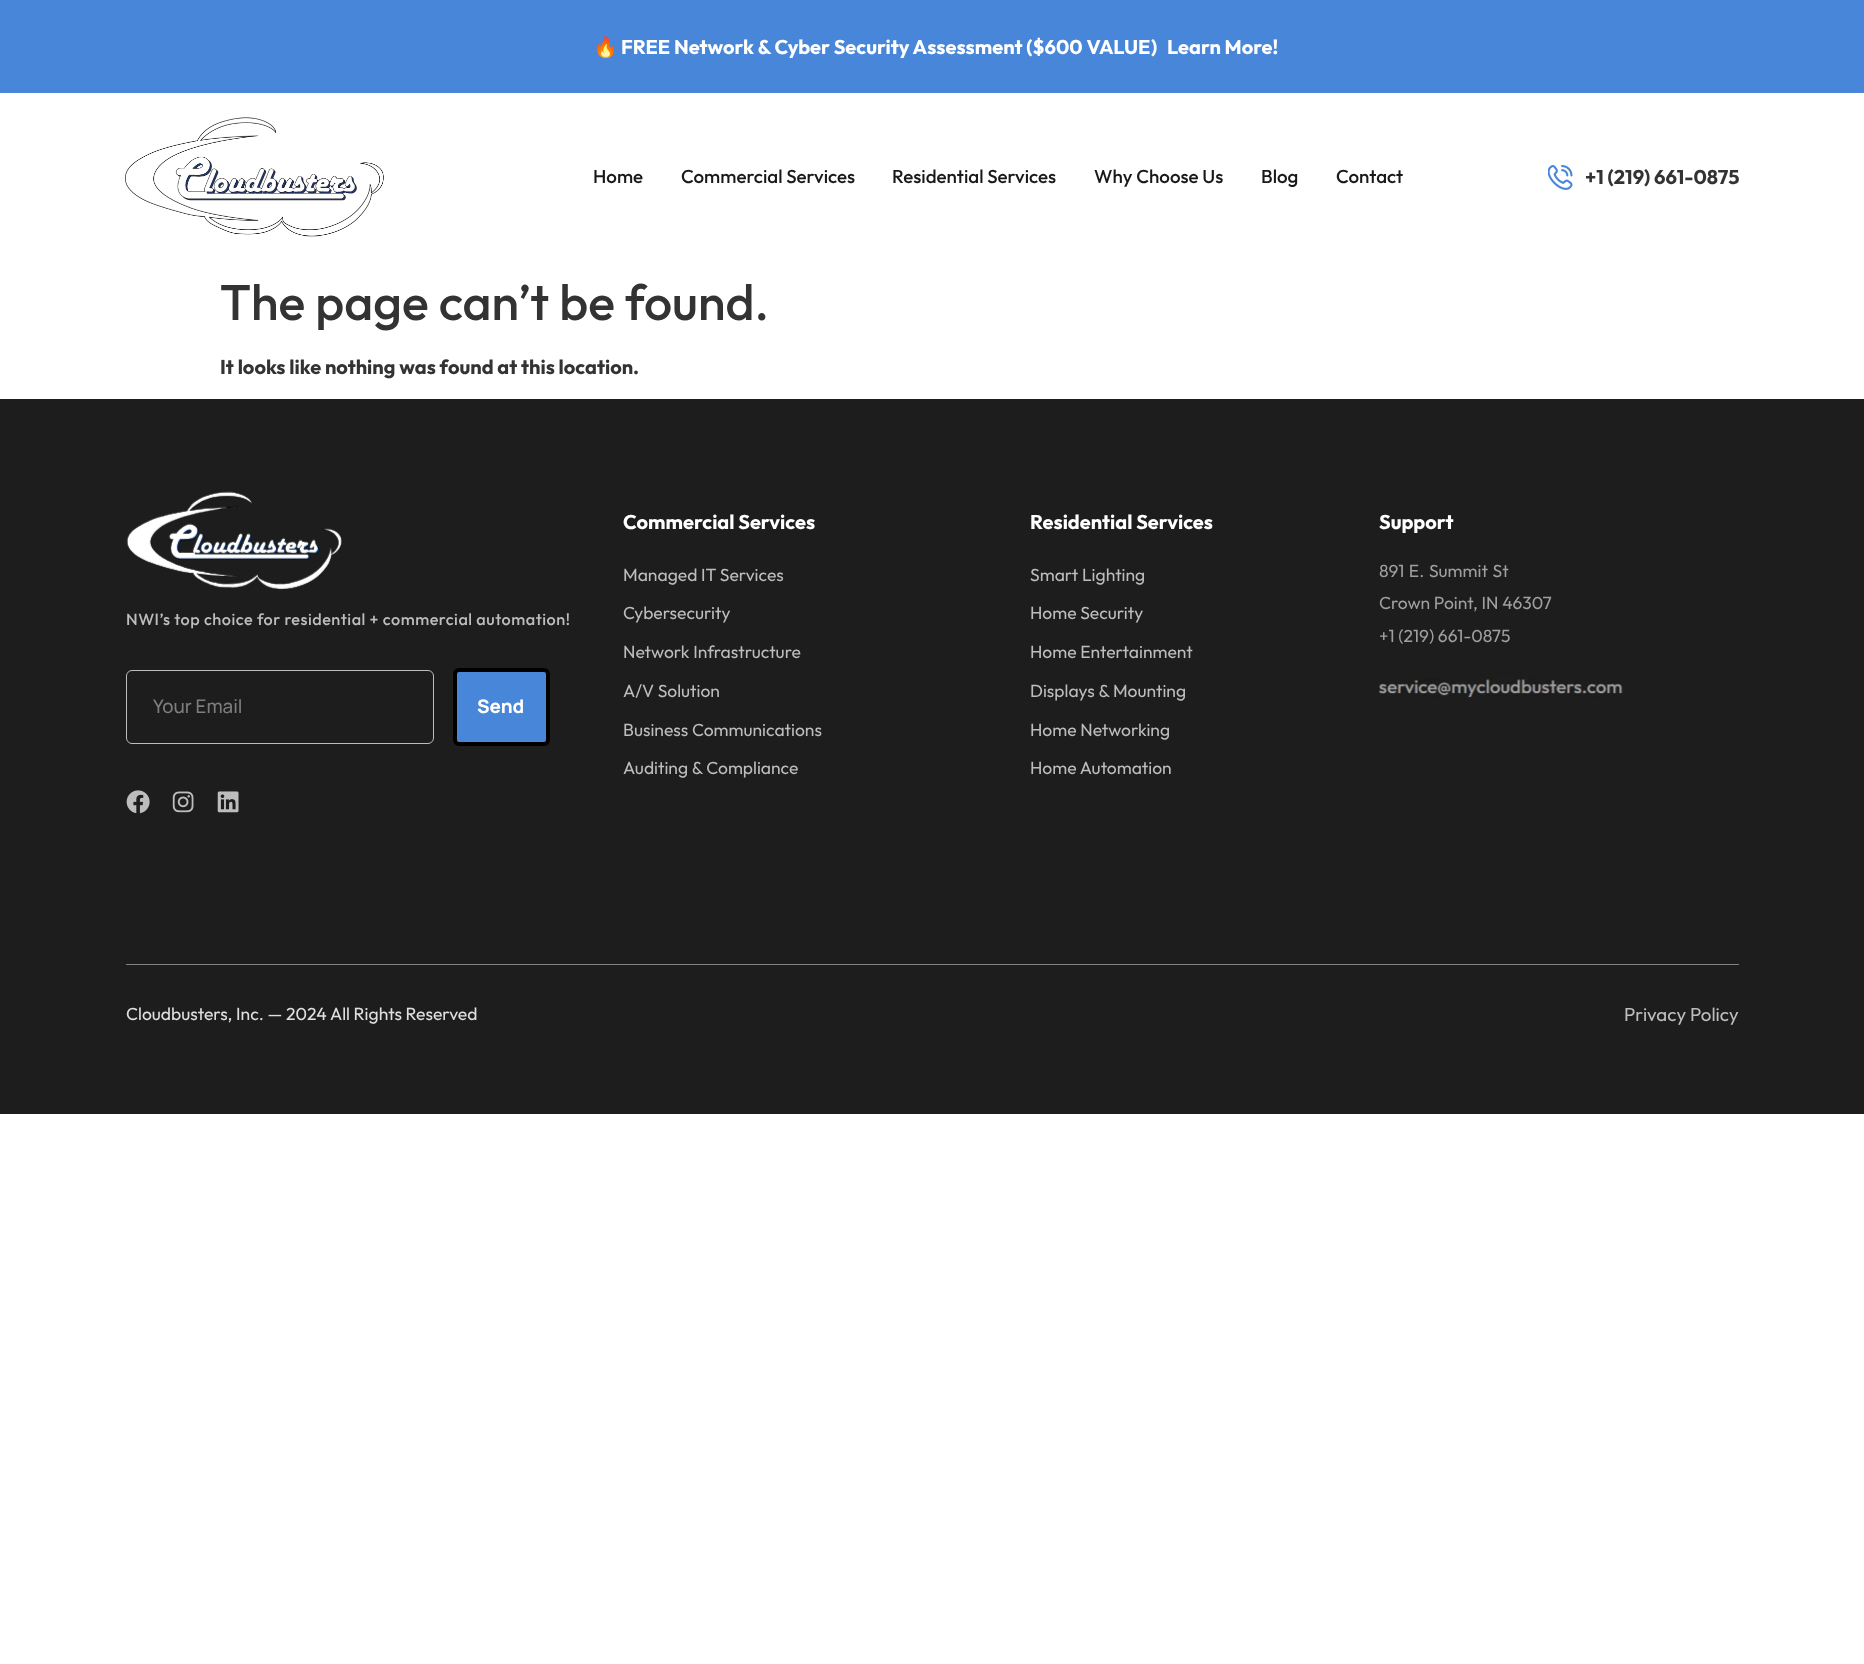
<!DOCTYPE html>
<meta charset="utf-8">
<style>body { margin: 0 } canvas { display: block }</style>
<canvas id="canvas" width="1864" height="1664"></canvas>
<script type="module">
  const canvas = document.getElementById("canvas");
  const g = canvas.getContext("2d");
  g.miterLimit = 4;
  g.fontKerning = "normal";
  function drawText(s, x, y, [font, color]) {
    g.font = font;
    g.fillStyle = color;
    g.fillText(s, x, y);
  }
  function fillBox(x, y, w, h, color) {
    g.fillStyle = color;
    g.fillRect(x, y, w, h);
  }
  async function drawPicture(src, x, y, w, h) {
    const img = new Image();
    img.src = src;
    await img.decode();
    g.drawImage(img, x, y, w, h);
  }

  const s1 = ["bold 20px Noto Color Emoji", "#FFFFFF"];
  const s2 = ["bold 20px Outfit", "#FFFFFF"];
  const s3 = ["500 18.75px Outfit", "#191919"];
  const s4 = ["bold 20px Outfit", "#333333"];
  const s5 = ["500 50px Outfit", "#333333"];
  const s6 = ["17.5px Outfit", "#BDBDBD"];
  const s7 = ["17.5px Outfit", "#9F9F9F"];
  const s8 = ["500 16.25px Outfit", "#BDBDBD"];
  const s9 = ["500 18.75px Manrope", "#7D7D7D"];
  const s10 = ["800 18.75px Manrope", "#FFFFFF"];
  const s11 = ["17.5px Outfit", "#E0E0E0"];
  const s12 = ["18.75px Outfit", "#BDBDBD"];

  fillBox(0, 0, 1864, 1664, "#FFFFFF");
  fillBox(0, 0, 1864, 93, "#4886D9");
  drawText("🔥", 593, 54, s1);
  drawText("FREE Network & Cyber Security Assessment ($600 VALUE)", 621, 54, s2);
  drawText("Learn More!", 1167, 54, s2);
  await drawPicture("pic1.png", 125, 117, 259, 120);
  drawText("Home", 593, 183, s3);
  drawText("Commercial Services", 681, 183, s3);
  drawText("Residential Services", 892, 183, s3);
  drawText("Why Choose Us", 1094, 183, s3);
  drawText("Blog", 1261, 183, s3);
  drawText("Contact", 1336, 183, s3);
  await drawPicture("pic2.png", 1548, 165, 25, 25);
  drawText("+1 (219) 661-0875", 1585, 184, s4);
  drawText("The page can’t be found.", 220, 320, s5);
  drawText("It looks like nothing was found at this location.", 220, 374, s4);
  fillBox(0, 399, 1864, 715, "#1D1D1D");
  drawText("Commercial Services", 623, 529, s2);
  drawText("Managed IT Services", 623, 581, s6);
  drawText("Cybersecurity", 623, 619, s6);
  drawText("Network Infrastructure", 623, 658, s6);
  drawText("A/V Solution", 623, 697, s6);
  drawText("Business Communications", 623, 736, s6);
  drawText("Auditing & Compliance", 623, 774, s6);
  drawText("Residential Services", 1030, 529, s2);
  drawText("Smart Lighting", 1030, 581, s6);
  drawText("Home Security", 1030, 619, s6);
  drawText("Home Entertainment", 1030, 658, s6);
  drawText("Displays & Mounting", 1030, 697, s6);
  drawText("Home Networking", 1030, 736, s6);
  drawText("Home Automation", 1030, 774, s6);
  drawText("Support", 1379, 529, s2);
  g.wordSpacing = "1px";
  drawText("891 E. Summit St", 1379, 577, s7);
  g.wordSpacing = "0px";
  drawText("Crown Point, IN 46307", 1379, 609, s7);
  drawText("+1 (219) 661-0875", 1379, 642, s7);
  await drawPicture("pic3.png", 1378, 677, 245, 21);
  await drawPicture("pic4.png", 126, 491, 216, 99);
  g.letterSpacing = "0.5px";
  drawText("NWI’s top choice for residential + commercial automation!", 126, 625, s8);
  g.beginPath();
  g.roundRect(126.5, 670.5, 307, 73, 5.5);
  g.strokeStyle = "#BDBDBD";
  g.stroke();
  g.letterSpacing = "0px";
  drawText("Your Email", 153, 713, s9);
  g.fillStyle = "#4886D9";
  g.beginPath();
  g.roundRect(455, 670, 93, 74, 4);
  g.fill();
  g.strokeStyle = "#000000";
  g.lineWidth = 4;
  g.stroke();
  drawText("Send", 477, 713, s10);
  await drawPicture("pic5.png", 126, 790, 24, 24);
  await drawPicture("pic6.png", 172, 791, 22, 22);
  await drawPicture("pic7.png", 217, 791, 22, 22);
  fillBox(126, 964, 1613, 1, "#828282");
  drawText("Cloudbusters, Inc. — 2024 All Rights Reserved", 126, 1020, s11);
  drawText("Privacy Policy", 1624, 1021, s12);
</script>
